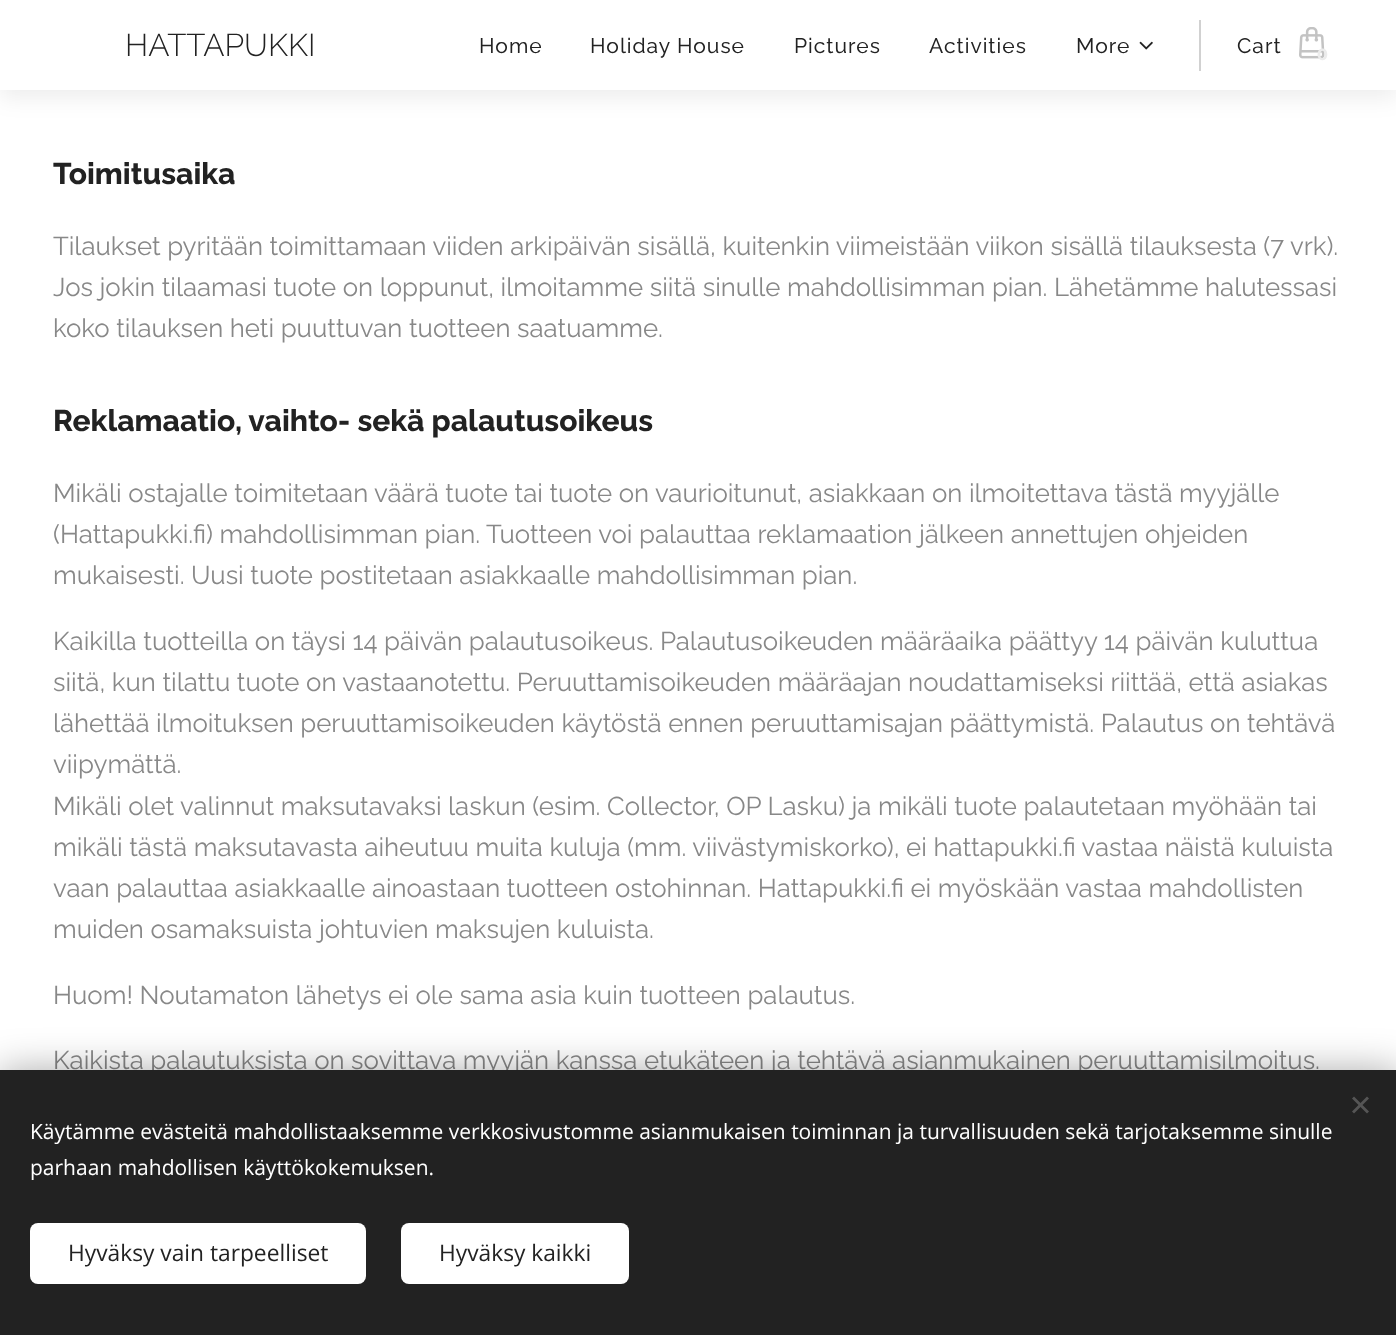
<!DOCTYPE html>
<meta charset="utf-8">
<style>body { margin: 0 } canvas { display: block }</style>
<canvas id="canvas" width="1396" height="1335"></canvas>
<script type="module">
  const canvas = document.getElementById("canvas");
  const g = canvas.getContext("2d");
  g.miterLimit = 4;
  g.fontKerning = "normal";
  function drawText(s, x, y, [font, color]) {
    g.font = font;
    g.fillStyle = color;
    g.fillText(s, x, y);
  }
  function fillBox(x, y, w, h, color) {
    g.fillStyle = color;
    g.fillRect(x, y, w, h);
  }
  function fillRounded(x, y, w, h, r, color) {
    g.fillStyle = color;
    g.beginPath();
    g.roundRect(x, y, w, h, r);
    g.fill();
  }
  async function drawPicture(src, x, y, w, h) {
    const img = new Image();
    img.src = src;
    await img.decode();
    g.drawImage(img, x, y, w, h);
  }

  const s1 = ["300 31.5px Raleway", "#222222"];
  const s2 = ["21px 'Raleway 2'", "#222222"];
  const s3 = ["bold 16px Montserrat", "#ECECEC"];
  const s4 = ["bold 30px Raleway", "#222222"];
  const s5 = ["25.8px Raleway", "#888888"];
  const s6 = ["21px Open Sans", "#FFFFFF"];
  const s7 = ["22.75px Open Sans", "#222222"];

  fillBox(0, 0, 1396, 1335, "#FFFFFF");
  g.fillStyle = "rgba(0, 0, 0, 0.07)";
  g.filter = "blur(11px)";
  g.beginPath();
  g.rect(0, 8, 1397, 90);
  g.fill();
  g.filter = "none";
  fillBox(0, 0, 1396, 90, "#FFFFFF");
  drawText("HATTAPUKKI", 125, 56, s1);
  g.letterSpacing = "1px";
  drawText("Home", 479, 53, s2);
  drawText("Holiday House", 590, 53, s2);
  drawText("Pictures", 794, 53, s2);
  drawText("Activities", 929, 53, s2);
  drawText("More", 1076, 53, s2);
  await drawPicture("pic1.png", 1139, 41, 14, 9);
  fillBox(1199, 20, 2, 51, "#D1D1D1");
  drawText("Cart", 1237, 53, s2);
  await drawPicture("pic2.png", 1299, 27, 26, 32);
  g.letterSpacing = "0px";
  drawText("0", 1317, 60, s3);
  drawText("Toimitusaika", 53, 184, s4);
  drawText("Tilaukset pyritään toimittamaan viiden arkipäivän sisällä, kuitenkin viimeistään viikon sisällä tilauksesta (7 vrk).", 53, 255, s5);
  drawText("Jos jokin tilaamasi tuote on loppunut, ilmoitamme siitä sinulle mahdollisimman pian. Lähetämme halutessasi", 53, 296, s5);
  drawText("koko tilauksen heti puuttuvan tuotteen saatuamme.", 53, 337, s5);
  drawText("Reklamaatio, vaihto- sekä palautusoikeus", 53, 431, s4);
  drawText("Mikäli ostajalle toimitetaan väärä tuote tai tuote on vaurioitunut, asiakkaan on ilmoitettava tästä myyjälle", 53, 502, s5);
  drawText("(Hattapukki.fi) mahdollisimman pian. Tuotteen voi palauttaa reklamaation jälkeen annettujen ohjeiden", 53, 543, s5);
  drawText("mukaisesti. Uusi tuote postitetaan asiakkaalle mahdollisimman pian.", 53, 584, s5);
  drawText("Kaikilla tuotteilla on täysi 14 päivän palautusoikeus. Palautusoikeuden määräaika päättyy 14 päivän kuluttua", 53, 650, s5);
  drawText("siitä, kun tilattu tuote on vastaanotettu. Peruuttamisoikeuden määräajan noudattamiseksi riittää, että asiakas", 53, 691, s5);
  drawText("lähettää ilmoituksen peruuttamisoikeuden käytöstä ennen peruuttamisajan päättymistä. Palautus on tehtävä", 53, 732, s5);
  drawText("viipymättä.", 53, 773, s5);
  drawText("Mikäli olet valinnut maksutavaksi laskun (esim. Collector, OP Lasku) ja mikäli tuote palautetaan myöhään tai", 53, 815, s5);
  drawText("mikäli tästä maksutavasta aiheutuu muita kuluja (mm. viivästymiskorko), ei hattapukki.fi vastaa näistä kuluista", 53, 856, s5);
  drawText("vaan palauttaa asiakkaalle ainoastaan tuotteen ostohinnan. Hattapukki.fi ei myöskään vastaa mahdollisten", 53, 897, s5);
  drawText("muiden osamaksuista johtuvien maksujen kuluista.", 53, 938, s5);
  drawText("Huom! Noutamaton lähetys ei ole sama asia kuin tuotteen palautus.", 53, 1004, s5);
  drawText("Kaikista palautuksista on sovittava myyjän kanssa etukäteen ja tehtävä asianmukainen peruuttamisilmoitus.", 53, 1069, s5);
  g.fillStyle = "rgba(0, 0, 0, 0.33)";
  g.filter = "blur(19px)";
  g.beginPath();
  g.rect(0, 1070, 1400, 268);
  g.fill();
  g.filter = "none";
  fillBox(0, 1070, 1396, 265, "#222222");
  g.fillStyle = "#555555";
  g.beginPath();
  g.moveTo(1352, 1111.5);
  g.lineTo(1367, 1096.5);
  g.lineTo(1369, 1098.5);
  g.lineTo(1354, 1113.5);
  g.closePath();
  g.fill();
  g.beginPath();
  g.moveTo(1354, 1096.5);
  g.lineTo(1369, 1111.5);
  g.lineTo(1367, 1113.5);
  g.lineTo(1352, 1098.5);
  g.closePath();
  g.fill();
  drawText("Käytämme evästeitä mahdollistaaksemme verkkosivustomme asianmukaisen toiminnan ja turvallisuuden sekä tarjotaksemme sinulle", 30, 1139, s6);
  drawText("parhaan mahdollisen käyttökokemuksen.", 30, 1175, s6);
  fillRounded(30, 1223, 336, 61, 8, "#FFFFFF");
  drawText("Hyväksy vain tarpeelliset", 68, 1261, s7);
  fillRounded(401, 1223, 228, 61, 8, "#FFFFFF");
  drawText("Hyväksy kaikki", 439, 1261, s7);
</script>
